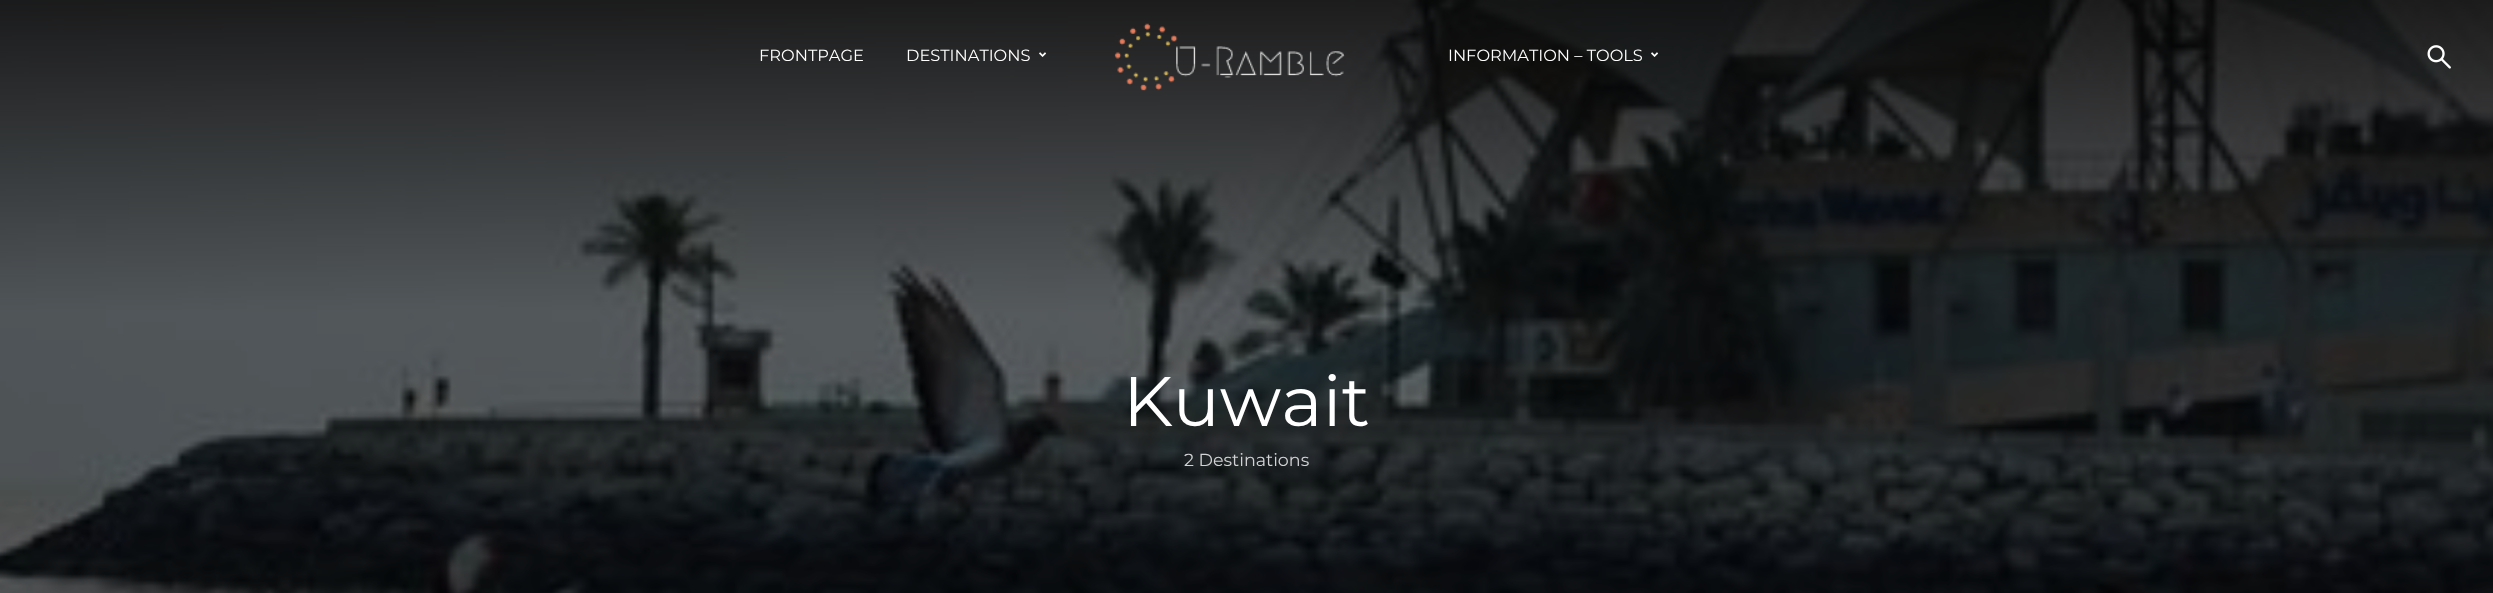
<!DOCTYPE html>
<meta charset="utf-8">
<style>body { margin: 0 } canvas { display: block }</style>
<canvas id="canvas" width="2493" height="593"></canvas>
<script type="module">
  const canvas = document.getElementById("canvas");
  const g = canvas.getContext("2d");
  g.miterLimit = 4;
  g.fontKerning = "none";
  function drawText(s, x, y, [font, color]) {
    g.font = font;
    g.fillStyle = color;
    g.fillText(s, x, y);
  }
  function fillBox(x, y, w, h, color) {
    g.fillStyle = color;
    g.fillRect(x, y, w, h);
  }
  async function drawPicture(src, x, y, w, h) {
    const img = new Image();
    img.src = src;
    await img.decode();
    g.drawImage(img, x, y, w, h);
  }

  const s1 = ["100 16.25px Montserrat", "#FFFFFF"];
  const s2 = ["16.25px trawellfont", "#FFFFFF"];
  const s3 = ["100 70px Montserrat", "#FFFFFF"];
  const s4 = ["100 17.5px Montserrat", "#D2D3D4"];

  fillBox(0, 0, 2493, 593, "#FFFFFF");
  await drawPicture("pic3.png", 0, 0, 2493, 593);
  drawText("FRONTPAGE", 759, 61, s1);
  drawText("DESTINATIONS", 906, 61, s1);
  drawText("𐥻", 1039, 61, s2);
  await drawPicture("pic1.png", 1114, 23, 231, 68);
  drawText("INFORMATION – TOOLS", 1448, 61, s1);
  drawText("𐥻", 1651, 61, s2);
  await drawPicture("pic2.png", 2427, 45, 24, 24);
  drawText("Kuwait", 1123, 426, s3);
  drawText("2 Destinations", 1184, 466, s4);
</script>
